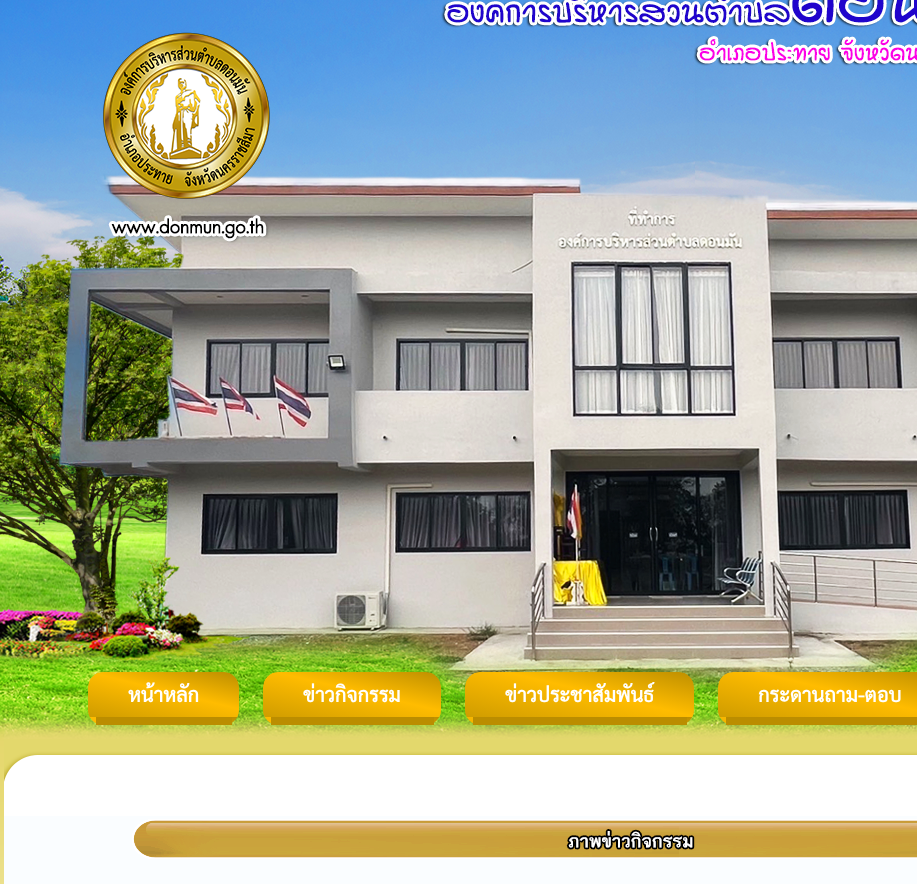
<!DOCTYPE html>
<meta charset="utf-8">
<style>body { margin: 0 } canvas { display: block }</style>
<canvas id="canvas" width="917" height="884"></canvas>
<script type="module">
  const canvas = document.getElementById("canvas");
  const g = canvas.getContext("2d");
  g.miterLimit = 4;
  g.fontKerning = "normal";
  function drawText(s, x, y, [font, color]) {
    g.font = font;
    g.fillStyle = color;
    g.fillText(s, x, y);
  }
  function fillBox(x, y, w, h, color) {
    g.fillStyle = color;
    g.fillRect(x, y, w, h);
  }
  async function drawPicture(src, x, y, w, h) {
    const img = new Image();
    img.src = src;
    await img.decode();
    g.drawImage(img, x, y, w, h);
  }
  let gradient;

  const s1 = ["bold 20px Sarabun", "#FFFFFF"];

  fillBox(0, 0, 917, 884, "#FFFFFF");
  await drawPicture("pic1.png", 0, 0, 4, 739);
  await drawPicture("pic2.png", 4, 0, 913, 739);
  await drawPicture("pic3.png", 103, 32, 167, 167);
  await drawPicture("pic4.png", 441, 0, 476, 66);
  g.save();
  g.beginPath();
  g.roundRect(88, 672, 151, 53, 15);
  g.clip();
  gradient = g.createLinearGradient(154, 733, 173, 656);
  gradient.addColorStop(0.01, "#CF9C00");
  gradient.addColorStop(0.55, "#FFBC00");
  gradient.addColorStop(1, "#BB8D00");
  g.fillStyle = gradient;
  g.beginPath();
  g.roundRect(88, 672, 151, 45, [15, 15, 0, 0]);
  g.fill();
  gradient = g.createLinearGradient(154, 778, 173, 701);
  gradient.addColorStop(0.01, "#CF9C00");
  gradient.addColorStop(0.55, "#FFBC00");
  gradient.addColorStop(1, "#BB8D00");
  g.fillStyle = gradient;
  g.fillRect(88, 717, 151, 7);
  g.restore();
  fillBox(96, 717, 136, 8, "#BB8D00");
  drawText("หน้าหลัก", 128, 702, s1);
  g.save();
  g.beginPath();
  g.roundRect(263, 672, 178, 53, 15);
  g.clip();
  gradient = g.createLinearGradient(342, 737, 362, 652);
  gradient.addColorStop(0.01, "#CF9C00");
  gradient.addColorStop(0.55, "#FFBC00");
  gradient.addColorStop(1, "#BB8D00");
  g.fillStyle = gradient;
  g.beginPath();
  g.roundRect(263, 672, 178, 45, [15, 15, 0, 0]);
  g.fill();
  gradient = g.createLinearGradient(342, 782, 362, 697);
  gradient.addColorStop(0.01, "#CF9C00");
  gradient.addColorStop(0.55, "#FFBC00");
  gradient.addColorStop(1, "#BB8D00");
  g.fillStyle = gradient;
  g.fillRect(263, 717, 178, 7);
  g.restore();
  fillBox(271, 717, 163, 8, "#BB8D00");
  drawText("ข่าวกิจกรรม", 303, 702, s1);
  g.save();
  g.beginPath();
  g.roundRect(465, 672, 229, 53, 15);
  g.clip();
  gradient = g.createLinearGradient(568, 743, 591, 646);
  gradient.addColorStop(0.01, "#CF9C00");
  gradient.addColorStop(0.55, "#FFBC00");
  gradient.addColorStop(1, "#BB8D00");
  g.fillStyle = gradient;
  g.beginPath();
  g.roundRect(465, 672, 229, 45, [15, 15, 0, 0]);
  g.fill();
  gradient = g.createLinearGradient(568, 788, 591, 691);
  gradient.addColorStop(0.01, "#CF9C00");
  gradient.addColorStop(0.55, "#FFBC00");
  gradient.addColorStop(1, "#BB8D00");
  g.fillStyle = gradient;
  g.fillRect(465, 717, 229, 7);
  g.restore();
  fillBox(473, 717, 214, 8, "#BB8D00");
  drawText("ข่าวประชาสัมพันธ์", 505, 702, s1);
  g.save();
  g.beginPath();
  g.roundRect(718, 672, 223, 53, 15);
  g.clip();
  gradient = g.createLinearGradient(818, 742, 841, 647);
  gradient.addColorStop(0.01, "#CF9C00");
  gradient.addColorStop(0.55, "#FFBC00");
  gradient.addColorStop(1, "#BB8D00");
  g.fillStyle = gradient;
  g.beginPath();
  g.moveTo(733, 672);
  g.lineTo(917, 672);
  g.bezierCurveTo(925.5, 672, 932, 678.5, 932, 687);
  g.lineTo(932, 717);
  g.lineTo(718, 717);
  g.lineTo(718, 687);
  g.bezierCurveTo(718, 678.5, 724.5, 672, 733, 672);
  g.closePath();
  g.fill();
  gradient = g.createLinearGradient(818, 787, 841, 692);
  gradient.addColorStop(0.01, "#CF9C00");
  gradient.addColorStop(0.55, "#FFBC00");
  gradient.addColorStop(1, "#BB8D00");
  g.fillStyle = gradient;
  g.fillRect(718, 717, 8, 7);
  g.restore();
  fillBox(726, 717, 191, 8, "#BB8D00");
  drawText("กระดานถาม-ตอบ", 758, 702, s1);
  await drawPicture("pic5.png", 0, 739, 4, 145);
  await drawPicture("pic6.png", 4, 739, 913, 77);
  fillBox(4, 816, 913, 68, "#FAFDFF");
  await drawPicture("pic7.png", 132, 819, 785, 40);
</script>
